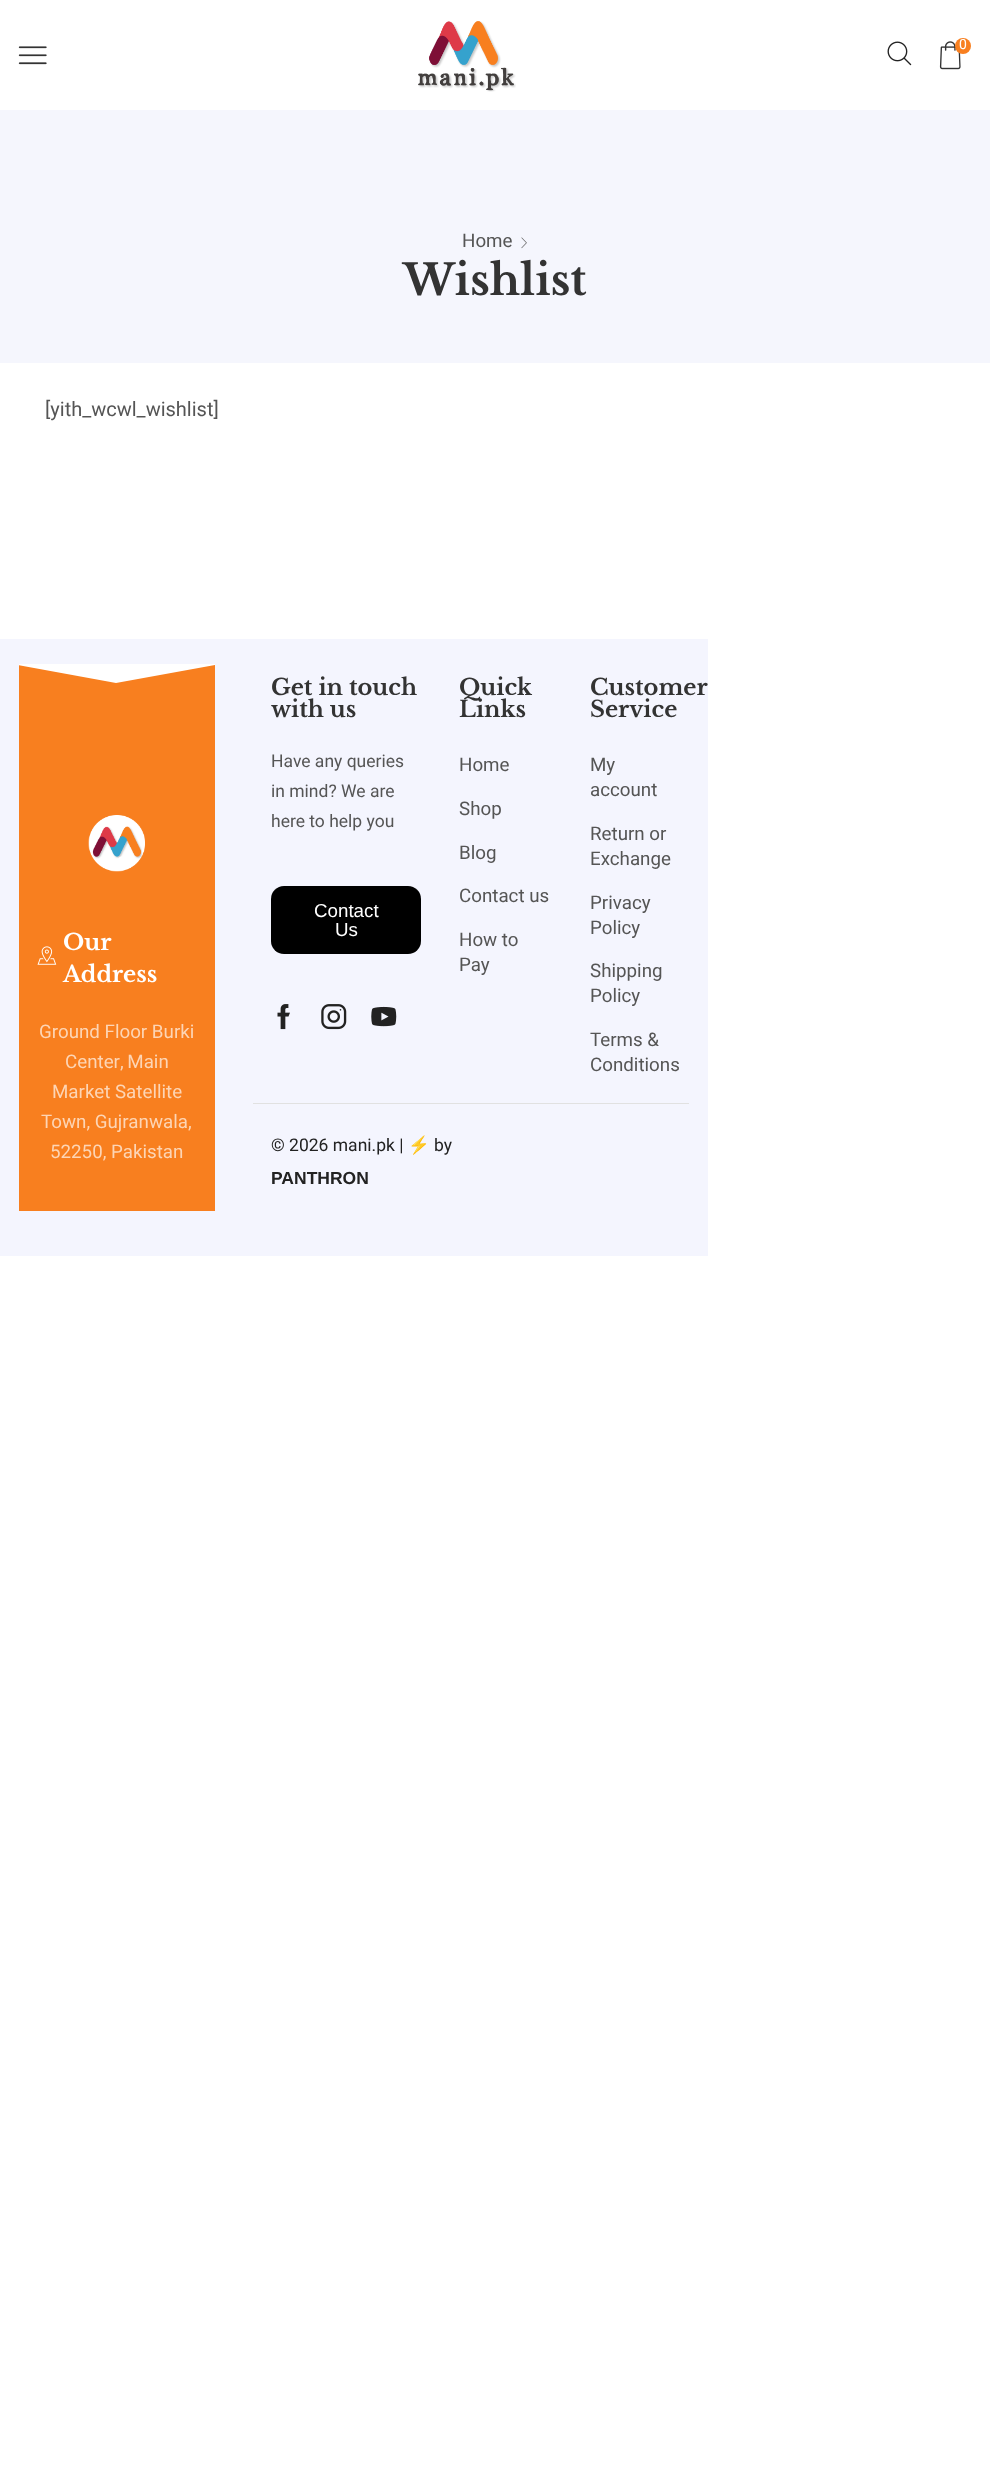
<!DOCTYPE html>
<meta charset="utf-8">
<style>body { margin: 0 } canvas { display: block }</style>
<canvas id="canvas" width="990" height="2475"></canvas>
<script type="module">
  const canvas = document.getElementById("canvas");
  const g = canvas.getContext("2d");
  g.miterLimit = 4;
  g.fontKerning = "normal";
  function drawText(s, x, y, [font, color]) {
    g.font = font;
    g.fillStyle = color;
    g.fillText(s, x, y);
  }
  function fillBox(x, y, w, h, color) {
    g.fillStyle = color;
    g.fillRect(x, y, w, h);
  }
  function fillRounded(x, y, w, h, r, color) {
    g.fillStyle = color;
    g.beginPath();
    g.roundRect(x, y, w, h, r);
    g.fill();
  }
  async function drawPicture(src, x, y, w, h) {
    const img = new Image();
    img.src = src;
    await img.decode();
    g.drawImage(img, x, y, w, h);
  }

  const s1 = ["14px Roboto", "#FFFFFF"];
  const s2 = ["18.75px Roboto", "#555555"];
  const s3 = ["bold 42.5px Libre Baskerville", "#333333"];
  const s4 = ["20px Roboto", "#555555"];
  const s5 = ["bold 22.5px Libre Baskerville", "#FFFFFF"];
  const s6 = ["18.75px Roboto", "#FDD5B5"];
  const s7 = ["bold 22.5px Libre Baskerville", "#333333"];
  const s8 = ["17.5px Roboto", "#555555"];
  const s9 = ["18.75px Liberation Sans", "#FFFFFF"];
  const s10 = ["17.5px Roboto", "#222222"];
  const s11 = ["17.5px Noto Color Emoji", "#222222"];
  const s12 = ["bold 17.5px Liberation Sans", "#222222"];

  fillBox(0, 0, 990, 2475, "#FFFFFF");
  await drawPicture("pic1.png", 18, 46, 29, 19);
  await drawPicture("pic2.png", 418, 21, 98, 71);
  await drawPicture("pic3.png", 887, 41, 25, 25);
  await drawPicture("pic4.png", 939, 41, 22, 29);
  g.fillStyle = "#F87F1F";
  g.beginPath();
  g.arc(963, 46, 8, 0, Math.PI * 2);
  g.fill();
  drawText("0", 959, 49, s1);
  fillBox(0, 110, 990, 253, "#F5F6FD");
  drawText("Home", 462, 247, s2);
  await drawPicture("pic5.png", 521, 237, 6, 12);
  drawText("Wishlist", 403, 295, s3);
  drawText("[yith_wcwl_wishlist]", 45, 416, s4);
  fillBox(0, 639, 708, 617, "#F4F5FE");
  fillBox(19, 665, 196, 546, "#F87F1F");
  g.save();
  g.beginPath();
  g.rect(19, 664, 196, 20);
  g.clip();
  g.fillStyle = "#FFFFFF";
  g.beginPath();
  g.moveTo(116, 683);
  g.lineTo(17, 665);
  g.lineTo(17, 664);
  g.lineTo(215, 664);
  g.lineTo(215, 665);
  g.closePath();
  g.fill();
  g.restore();
  await drawPicture("pic6.png", 88, 815, 57, 57);
  await drawPicture("pic7.png", 37, 946, 20, 19);
  drawText("Our", 63, 950, s5);
  drawText("Address", 63, 982, s5);
  drawText("Ground Floor Burki", 39, 1038, s6);
  g.wordSpacing = "-1px";
  drawText("Center, Main", 65, 1068, s6);
  g.wordSpacing = "0px";
  drawText("Market Satellite", 52, 1098, s6);
  drawText("Town, Gujranwala,", 41, 1128, s6);
  drawText("52250, Pakistan", 50, 1158, s6);
  drawText("Get in touch", 271, 695, s7);
  drawText("with us", 271, 717, s7);
  drawText("Have any queries", 271, 767, s8);
  drawText("in mind? We are", 271, 797, s8);
  drawText("here to help you", 271, 827, s8);
  fillRounded(271, 886, 150, 68, 13, "#000000");
  drawText("Contact", 314, 917, s9);
  drawText("Us", 335, 936, s9);
  await drawPicture("pic8.png", 277, 1004, 13, 26);
  await drawPicture("pic9.png", 321, 1004, 26, 26);
  await drawPicture("pic10.png", 371, 1006, 26, 21);
  drawText("Quick", 459, 695, s7);
  drawText("Links", 459, 717, s7);
  drawText("Home", 459, 771, s2);
  drawText("Shop", 459, 815, s2);
  drawText("Blog", 459, 859, s2);
  drawText("Contact us", 459, 902, s2);
  drawText("How to", 459, 946, s2);
  drawText("Pay", 459, 971, s2);
  drawText("Customer", 590, 695, s7);
  drawText("Service", 590, 717, s7);
  drawText("My", 590, 771, s2);
  drawText("account", 590, 796, s2);
  drawText("Return or", 590, 840, s2);
  drawText("Exchange", 590, 865, s2);
  drawText("Privacy", 590, 909, s2);
  drawText("Policy", 590, 934, s2);
  drawText("Shipping", 590, 977, s2);
  drawText("Policy", 590, 1002, s2);
  drawText("Terms &", 590, 1046, s2);
  drawText("Conditions", 590, 1071, s2);
  fillBox(253, 1103, 436, 1, "#E1E1E1");
  drawText("© 2026 mani.pk |", 271, 1151, s10);
  drawText("⚡", 408, 1151, s11);
  drawText("by", 434, 1151, s10);
  drawText("PANTHRON", 271, 1184, s12);
</script>
